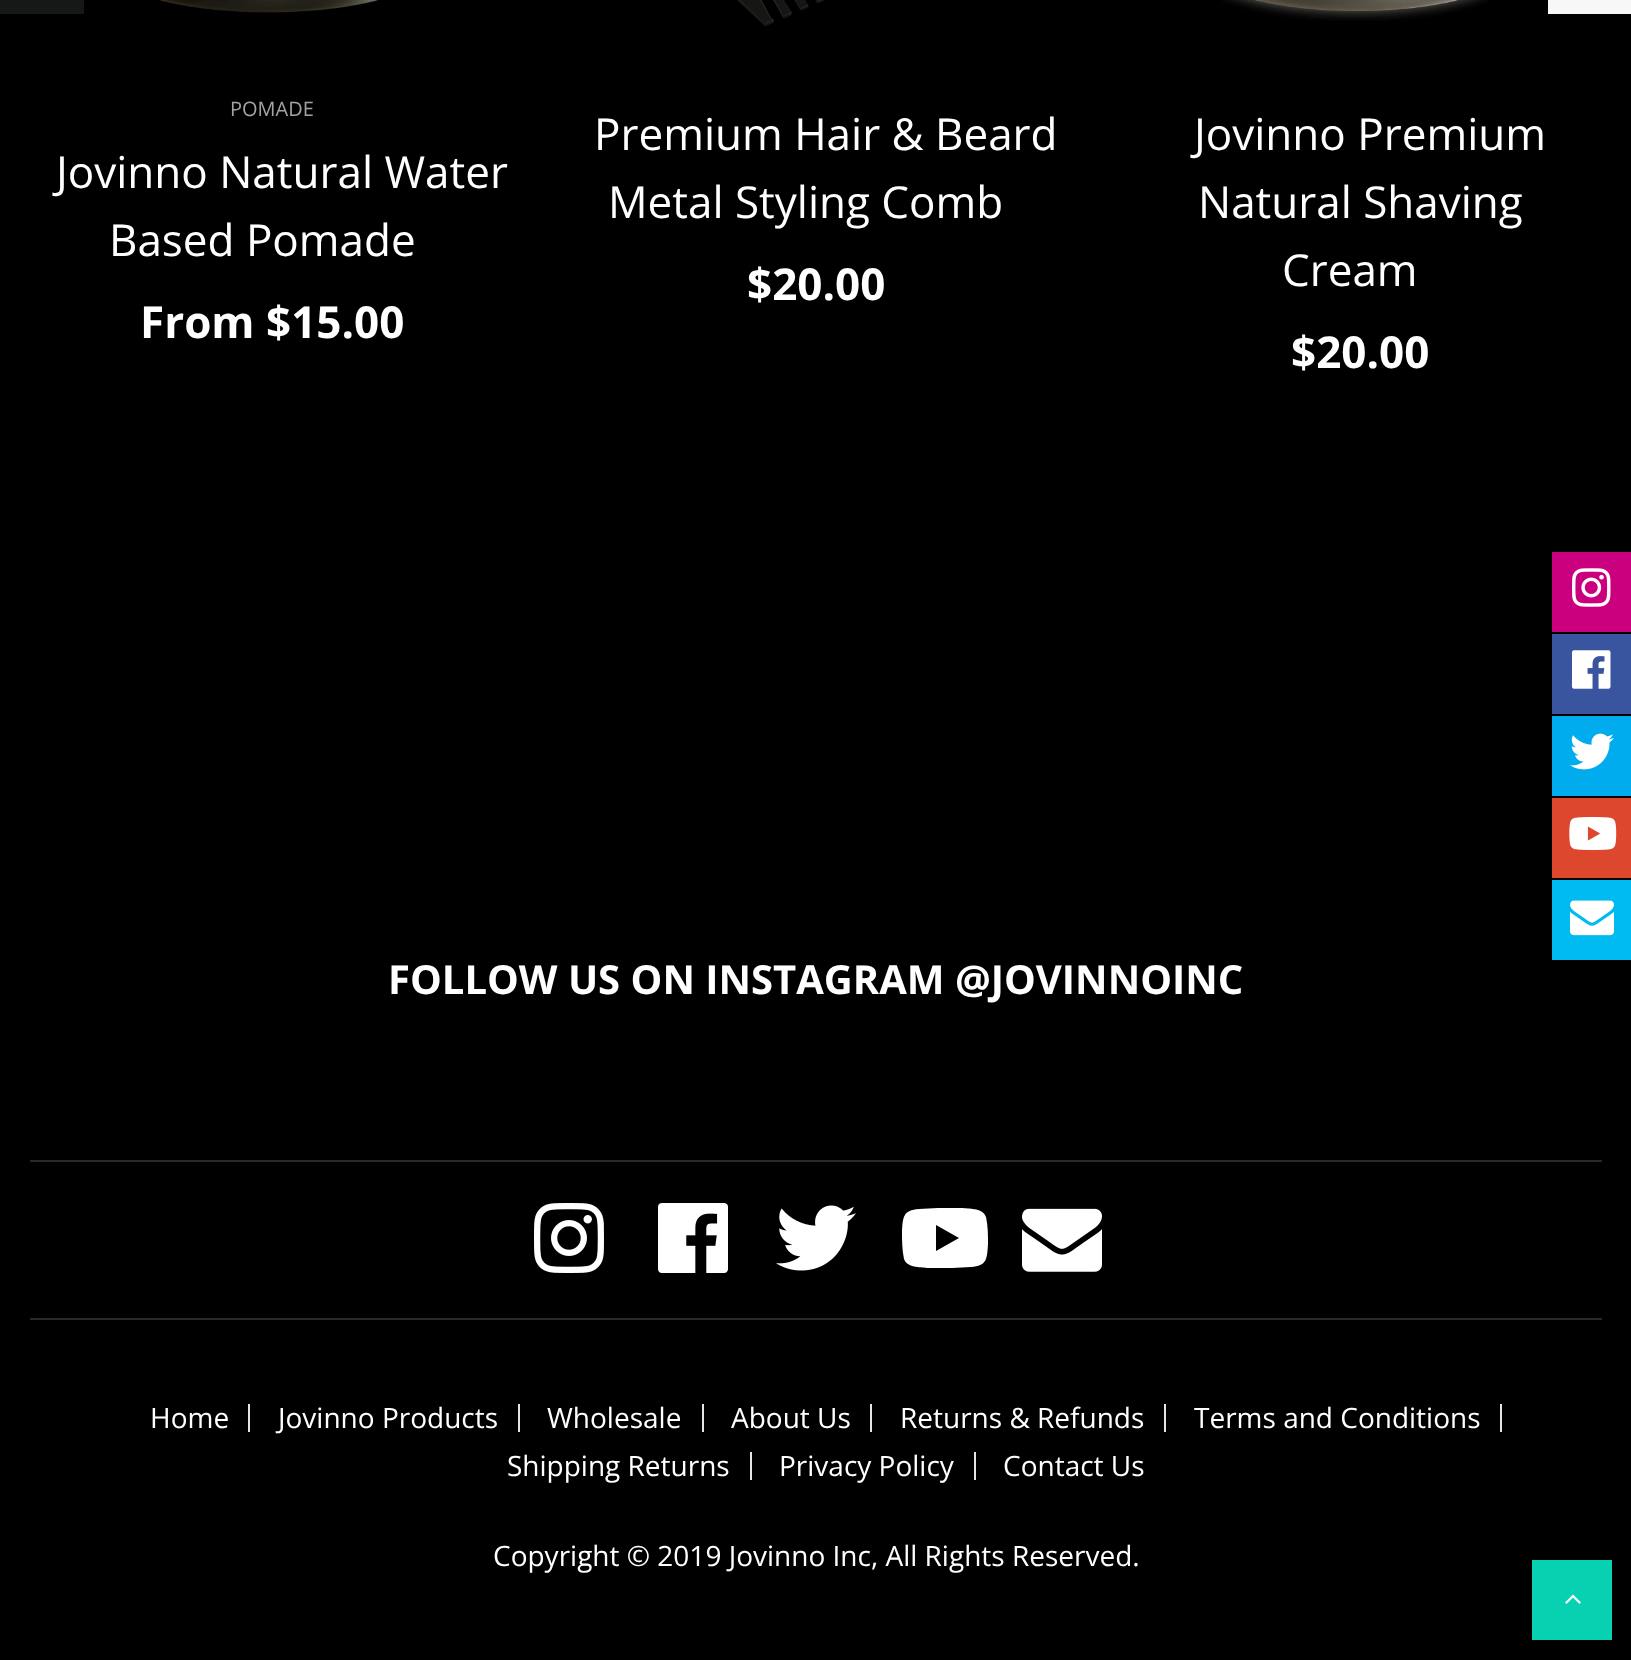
<!DOCTYPE html>
<meta charset="utf-8">
<style>body { margin: 0 } canvas { display: block }</style>
<canvas id="canvas" width="1631" height="1660"></canvas>
<script type="module">
  const canvas = document.getElementById("canvas");
  const g = canvas.getContext("2d");
  g.miterLimit = 4;
  g.fontKerning = "normal";
  function drawText(s, x, y, [font, color]) {
    g.font = font;
    g.fillStyle = color;
    g.fillText(s, x, y);
  }
  function fillBox(x, y, w, h, color) {
    g.fillStyle = color;
    g.fillRect(x, y, w, h);
  }
  async function drawPicture(src, x, y, w, h) {
    const img = new Image();
    img.src = src;
    await img.decode();
    g.drawImage(img, x, y, w, h);
  }

  const s1 = ["20px Open Sans", "#A3A3A3"];
  const s2 = ["44px Open Sans", "#FFFFFF"];
  const s3 = ["bold 44px Open Sans", "#FFFFFF"];
  const s4 = ["bold 40px Open Sans", "#FFFFFF"];
  const s5 = ["28px Open Sans", "#FFFFFF"];

  fillBox(0, 0, 1631, 1660, "#000000");
  fillBox(0, 0, 84, 14, "#161818");
  fillBox(1548, 0, 83, 14, "#F7F7F7");
  await drawPicture("pic1.png", 159, 0, 219, 13);
  drawText("POMADE", 230, 116, s1);
  drawText("Jovinno Natural Water", 56, 188, s2);
  drawText("Based Pomade", 109, 256, s2);
  drawText("From $15.00", 140, 338, s3);
  await drawPicture("pic2.png", 737, 0, 88, 26);
  drawText("Premium Hair & Beard", 594, 150, s2);
  drawText("Metal Styling Comb", 608, 218, s2);
  drawText("$20.00", 747, 300, s3);
  await drawPicture("pic3.png", 1222, 0, 266, 21);
  drawText("Jovinno Premium", 1194, 150, s2);
  drawText("Natural Shaving", 1198, 218, s2);
  drawText("Cream", 1282, 286, s2);
  drawText("$20.00", 1291, 368, s3);
  fillBox(1552, 552, 79, 80, "#CB007E");
  await drawPicture("pic4.png", 1572, 568, 39, 39);
  fillBox(1552, 634, 79, 80, "#3A559F");
  await drawPicture("pic5.png", 1572, 650, 39, 39);
  fillBox(1552, 716, 79, 80, "#00ACEE");
  await drawPicture("pic6.png", 1570, 733, 44, 37);
  fillBox(1552, 798, 79, 80, "#DC472E");
  await drawPicture("pic7.png", 1569, 817, 48, 33);
  fillBox(1552, 880, 79, 80, "#00BBF0");
  await drawPicture("pic8.png", 1570, 900, 44, 36);
  drawText("FOLLOW US ON INSTAGRAM @JOVINNOINC", 388, 994, s4);
  fillBox(30, 1160, 1572, 2, "#292929");
  fillBox(30, 1318, 1572, 2, "#292929");
  await drawPicture("pic9.png", 534, 1203, 70, 70);
  await drawPicture("pic10.png", 658, 1203, 70, 70);
  await drawPicture("pic11.png", 776, 1205, 80, 66);
  g.fillStyle = "#FFFFFF";
  g.beginPath();
  g.moveTo(986, 1217);
  g.bezierCurveTo(983, 1208, 971, 1209, 963, 1208);
  g.lineTo(938, 1208);
  g.lineTo(919, 1209);
  g.bezierCurveTo(903, 1210, 903, 1217, 902, 1231);
  g.bezierCurveTo(902, 1240, 902, 1250, 904, 1259);
  g.bezierCurveTo(907, 1268, 920, 1267, 927, 1268);
  g.lineTo(952, 1268);
  g.lineTo(971, 1267);
  g.bezierCurveTo(987, 1266, 987, 1259, 988, 1244);
  g.bezierCurveTo(988, 1235, 988, 1226, 986, 1217);
  g.closePath();
  g.moveTo(936, 1251);
  g.lineTo(936, 1225);
  g.lineTo(959, 1238);
  g.closePath();
  g.fill();
  await drawPicture("pic12.png", 1022, 1208, 80, 64);
  fillBox(248, 1404, 2, 28, "#E5E5E5");
  drawText("Home", 150, 1428, s5);
  fillBox(518, 1404, 2, 28, "#E5E5E5");
  drawText("Jovinno Products", 278, 1428, s5);
  fillBox(702, 1404, 2, 28, "#E5E5E5");
  drawText("Wholesale", 547, 1428, s5);
  fillBox(870, 1404, 2, 28, "#E5E5E5");
  drawText("About Us", 731, 1428, s5);
  fillBox(1164, 1404, 2, 28, "#E5E5E5");
  drawText("Returns & Refunds", 900, 1428, s5);
  fillBox(1500, 1404, 2, 28, "#E5E5E5");
  drawText("Terms and Conditions", 1194, 1428, s5);
  fillBox(750, 1452, 2, 28, "#E5E5E5");
  drawText("Shipping Returns", 507, 1476, s5);
  fillBox(974, 1452, 2, 28, "#E5E5E5");
  drawText("Privacy Policy", 779, 1476, s5);
  drawText("Contact Us", 1003, 1476, s5);
  drawText("Copyright © 2019 Jovinno Inc, All Rights Reserved.", 493, 1566, s5);
  fillBox(1532, 1560, 80, 80, "#08D1B2");
  await drawPicture("pic13.png", 1565, 1594, 16, 10);
</script>
